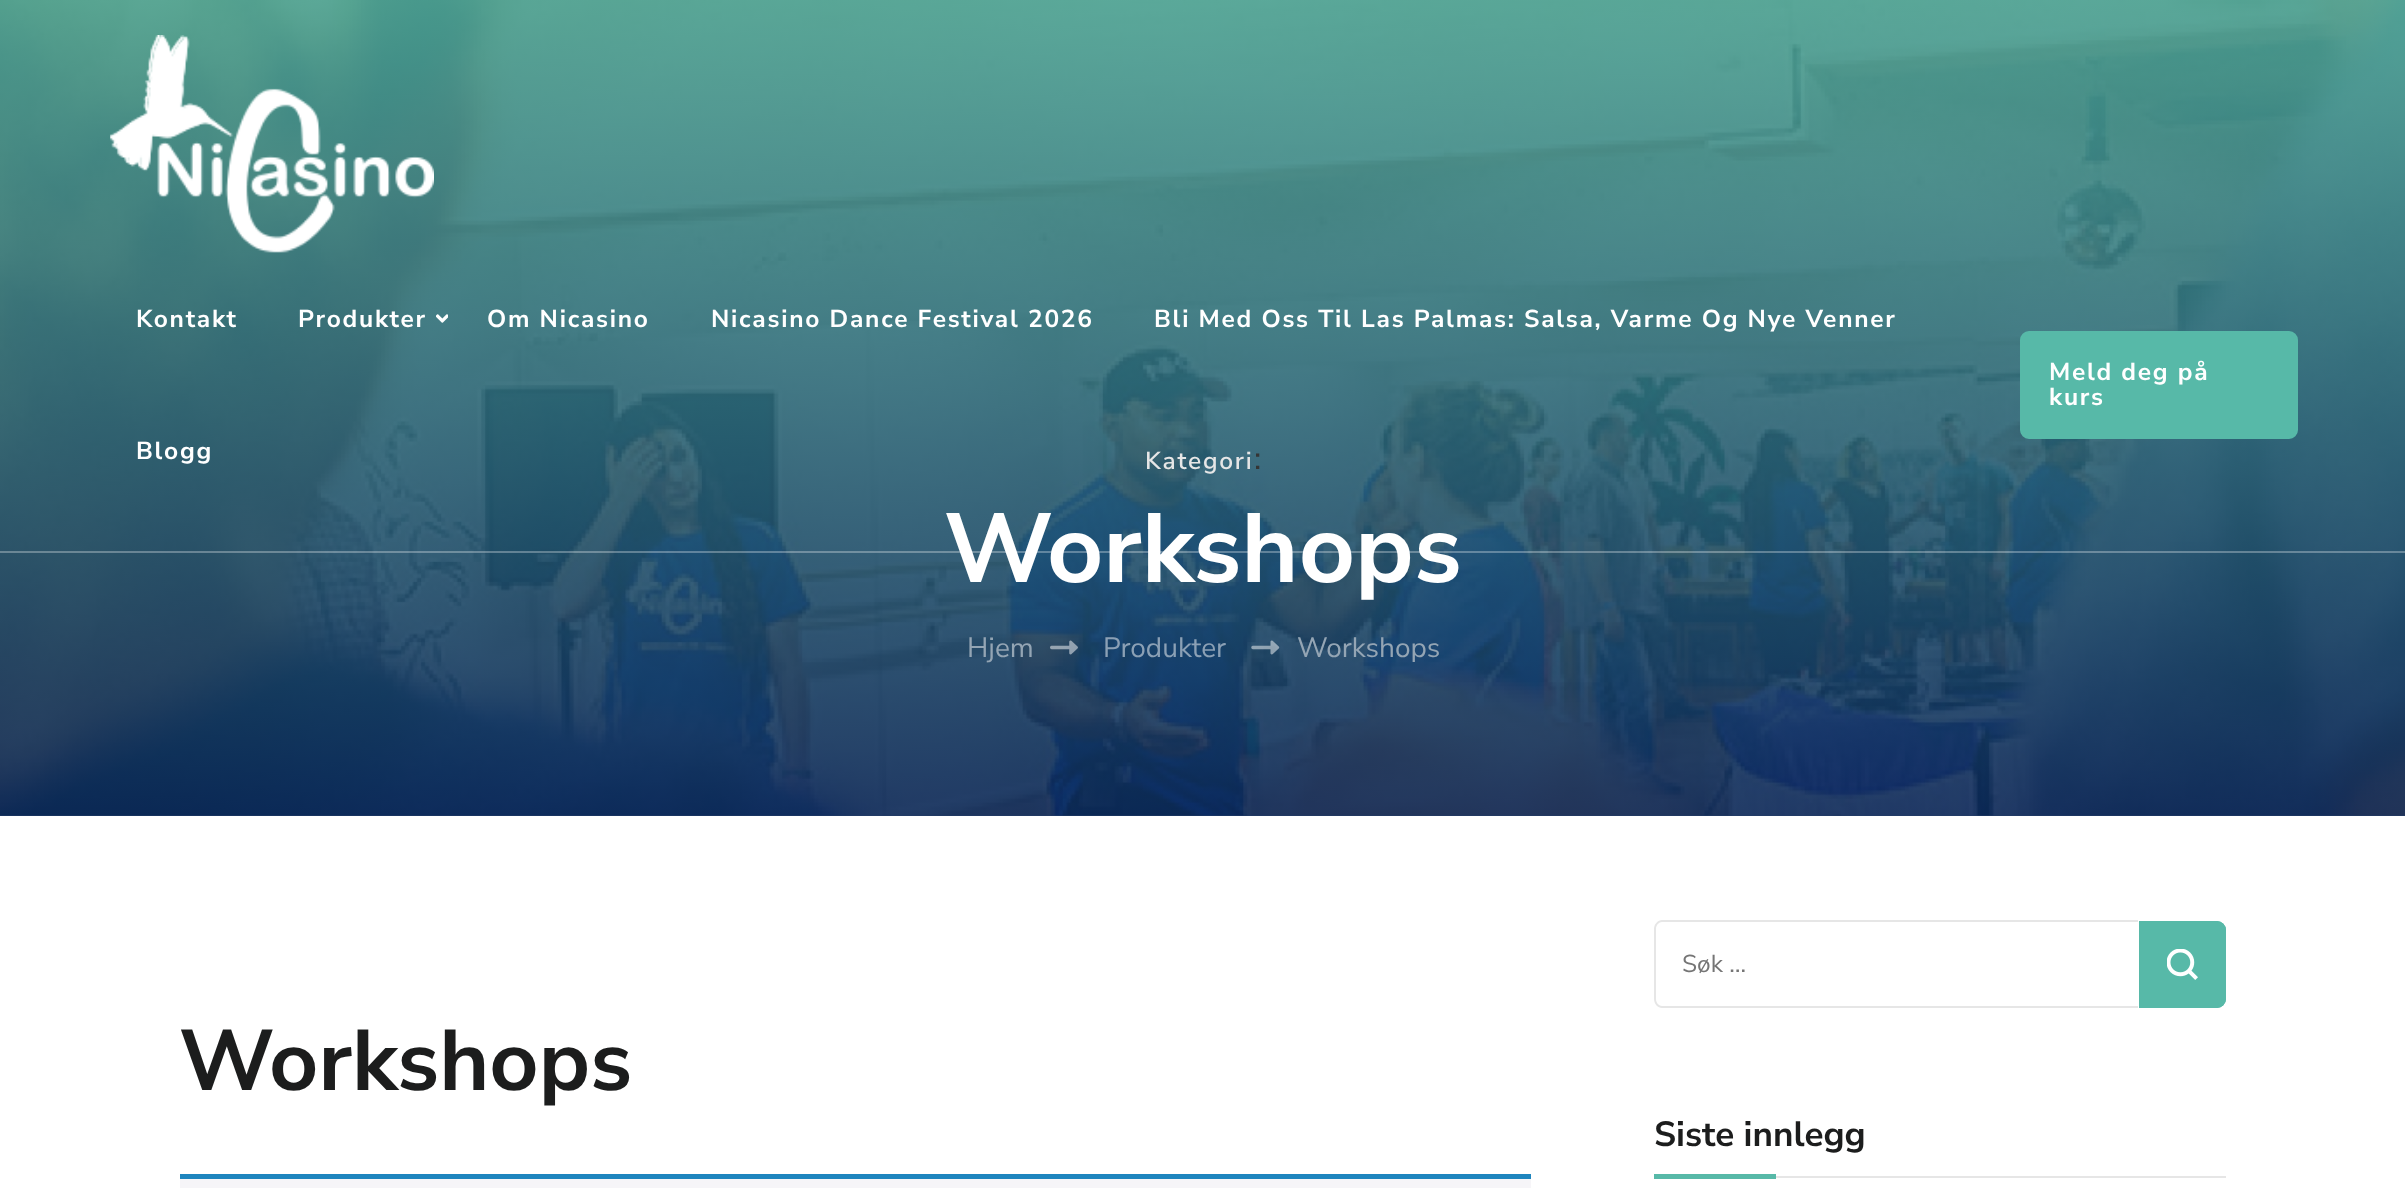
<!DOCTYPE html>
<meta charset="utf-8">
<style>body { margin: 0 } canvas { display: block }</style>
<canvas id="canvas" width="2405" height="1188"></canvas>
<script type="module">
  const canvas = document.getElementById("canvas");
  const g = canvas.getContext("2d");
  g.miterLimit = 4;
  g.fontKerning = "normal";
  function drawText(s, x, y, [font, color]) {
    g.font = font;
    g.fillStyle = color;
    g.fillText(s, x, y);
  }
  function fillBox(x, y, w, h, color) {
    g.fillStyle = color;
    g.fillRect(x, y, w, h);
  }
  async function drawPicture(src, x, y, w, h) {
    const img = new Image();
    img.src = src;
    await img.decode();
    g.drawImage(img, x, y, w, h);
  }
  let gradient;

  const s1 = ["bold 98px Nunito Sans", "#FFFFFF"];
  const s2 = ["bold 24.5px Nunito Sans", "#FFFFFF"];
  const s3 = ["600 24.5px Nunito Sans", "#E6E6E6"];
  const s4 = ["32px Nunito Sans", "#353535"];
  const s5 = ["28px Nunito Sans", "#94A5B4"];
  const s6 = ["28px Nunito Sans", "#8BA0B5"];
  const s7 = ["bold 85.75px Nunito Sans", "#1C1D1D"];
  const s8 = ["24.5px Nunito Sans", "#757575"];
  const s9 = ["bold 35px Nunito Sans", "#1C1D1D"];

  fillBox(0, 0, 2405, 1188, "#FFFFFF");
  fillBox(0, 815, 2405, 1, "#808080");
  await drawPicture("pic3.png", 0, 0, 2405, 816);
  gradient = g.createLinearGradient(1203, 0, 1203, 816);
  gradient.addColorStop(0, "rgba(87, 185, 168, 0.8)");
  gradient.addColorStop(1, "rgba(13, 45, 98, 0.8)");
  g.fillStyle = gradient;
  g.fillRect(0, 0, 2405, 816);
  drawText("Workshops", 944, 582, s1);
  fillBox(0, 551, 2405, 2, "rgba(255, 255, 255, 0.3)");
  await drawPicture("pic1.png", 110, 35, 324, 218);
  g.letterSpacing = "1.75px";
  drawText("Kontakt", 136, 327, s2);
  drawText("Produkter", 298, 327, s2);
  await drawPicture("pic2.png", 436, 314, 12, 9);
  drawText("Om Nicasino", 487, 327, s2);
  drawText("Nicasino Dance Festival 2026", 711, 327, s2);
  drawText("Bli Med Oss Til Las Palmas: Salsa, Varme Og Nye Venner", 1154, 327, s2);
  drawText("Blogg", 136, 459, s2);
  g.fillStyle = "#57B9A8";
  g.beginPath();
  g.roundRect(2022, 333, 274, 104, 7);
  g.fill();
  g.strokeStyle = "#57B9A8";
  g.lineWidth = 4;
  g.stroke();
  drawText("Meld deg på", 2049, 380, s2);
  drawText("kurs", 2049, 405, s2);
  drawText("Kategori", 1145, 469, s3);
  g.letterSpacing = "0px";
  drawText(":", 1254, 469, s4);
  drawText("Hjem", 967, 657, s5);
  await drawPicture("pic4.png", 1050, 640, 28, 15);
  drawText("Produkter", 1103, 657, s6);
  await drawPicture("pic5.png", 1251, 640, 29, 15);
  drawText("Workshops", 1297, 657, s5);
  drawText("Workshops", 179, 1090, s7);
  fillBox(180, 1179, 1351, 9, "#F6F5F8");
  fillBox(180, 1174, 1351, 5, "#1E85BE");
  g.fillStyle = "#E6E6E6";
  g.beginPath();
  g.moveTo(1662, 920);
  g.lineTo(2138, 920);
  g.lineTo(2138, 1008);
  g.lineTo(1662, 1008);
  g.bezierCurveTo(1658, 1008, 1654, 1004, 1654, 999);
  g.lineTo(1654, 929);
  g.bezierCurveTo(1654, 924, 1658, 920, 1662, 920);
  g.closePath();
  g.moveTo(1662, 922);
  g.lineTo(2138, 922);
  g.lineTo(2138, 1006);
  g.lineTo(1662, 1006);
  g.bezierCurveTo(1659, 1006, 1656, 1003, 1656, 999);
  g.lineTo(1656, 929);
  g.bezierCurveTo(1656, 925, 1659, 922, 1662, 922);
  g.closePath();
  g.fill("evenodd");
  drawText("Søk …", 1682, 972, s8);
  g.fillStyle = "#57B9A8";
  g.beginPath();
  g.roundRect(2139, 921, 87, 87, [0, 9, 9, 0]);
  g.fill();
  await drawPicture("pic6.png", 2167, 949, 31, 31);
  g.beginPath();
  g.roundRect(2141, 923, 83, 83, [0, 7, 7, 0]);
  g.stroke();
  fillBox(1776, 1176, 450, 2, "#E6E6E6");
  drawText("Siste innlegg", 1654, 1146, s9);
  fillBox(1654, 1174, 122, 5, "#57B9A8");
</script>
